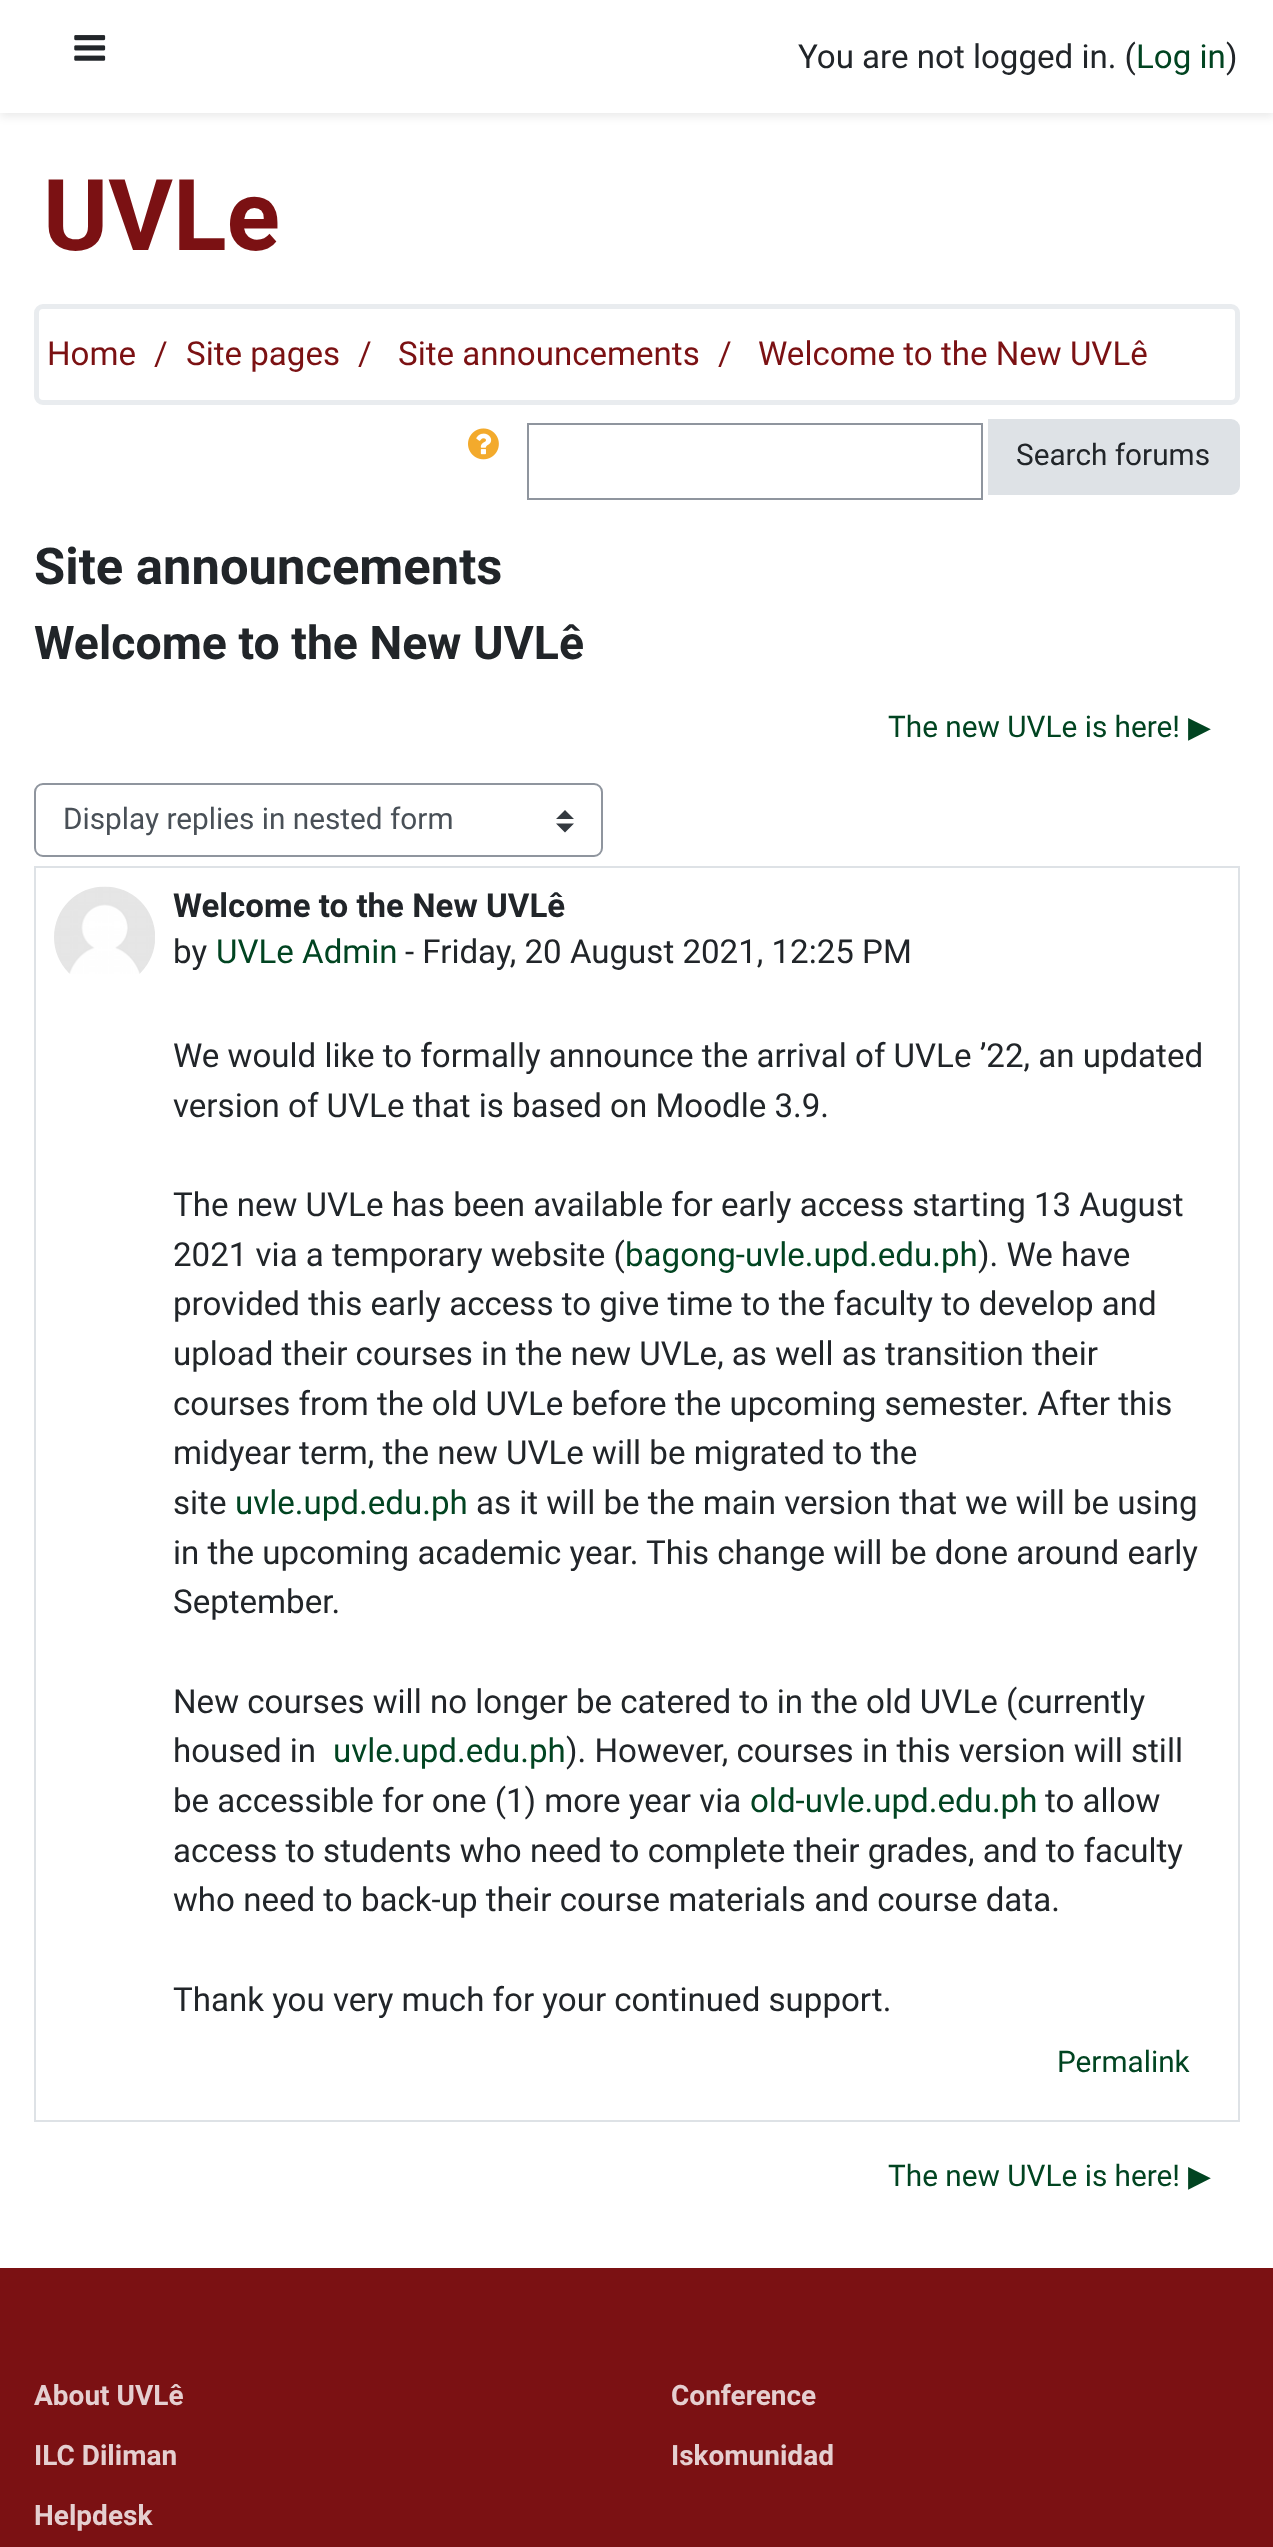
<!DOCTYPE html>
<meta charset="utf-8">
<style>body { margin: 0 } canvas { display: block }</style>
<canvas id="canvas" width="1273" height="2547"></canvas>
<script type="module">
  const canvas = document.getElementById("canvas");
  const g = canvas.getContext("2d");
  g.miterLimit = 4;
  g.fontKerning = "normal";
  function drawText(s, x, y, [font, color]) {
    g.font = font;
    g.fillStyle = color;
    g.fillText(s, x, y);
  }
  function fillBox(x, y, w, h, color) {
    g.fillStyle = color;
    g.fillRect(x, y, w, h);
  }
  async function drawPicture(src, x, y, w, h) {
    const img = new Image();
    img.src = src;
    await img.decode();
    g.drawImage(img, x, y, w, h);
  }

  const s1 = ["33.1px Roboto", "#212529"];
  const s2 = ["33.1px Roboto", "#014421"];
  const s3 = ["bold 99px Roboto", "#7B1113"];
  const s4 = ["33.1px Roboto", "#7B1113"];
  const s5 = ["29.75px Roboto", "#212529"];
  const s6 = ["bold 50.75px Roboto", "#212529"];
  const s7 = ["bold 46.4px Roboto", "#212529"];
  const s8 = ["29.75px Roboto", "#014421"];
  const s9 = ["29.75px DejaVu Sans", "#014421"];
  const s10 = ["29.75px Roboto", "#495057"];
  const s11 = ["bold 33.1px Roboto", "#212529"];
  const s12 = ["bold 28px Roboto", "#E5CFD0"];

  fillBox(0, 0, 1273, 2547, "#FFFFFF");
  g.fillStyle = "rgba(0, 0, 0, 0.08)";
  g.filter = "blur(4.5px)";
  g.beginPath();
  g.rect(0, 5, 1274, 112);
  g.fill();
  g.filter = "none";
  fillBox(0, 0, 1273, 113, "#FFFFFF");
  await drawPicture("pic1.png", 74, 35, 32, 26);
  drawText("You are not logged in. (", 798, 68, s1);
  drawText("Log in", 1136, 68, s2);
  drawText(")", 1226, 68, s1);
  drawText("UVLe", 43, 250, s3);
  g.beginPath();
  g.roundRect(36.5, 306.5, 1201, 96, 6.5);
  g.strokeStyle = "#E9ECEF";
  g.lineWidth = 5;
  g.stroke();
  drawText("Home", 47, 365, s4);
  drawText("/", 154, 365, s4);
  drawText("Site pages", 186, 365, s4);
  drawText("/", 358, 365, s4);
  drawText("Site announcements", 398, 365, s4);
  drawText("/", 718, 365, s4);
  drawText("Welcome to the New UVLê", 758, 365, s4);
  await drawPicture("pic2.png", 468, 428, 31, 32);
  g.strokeStyle = "#8F959E";
  g.lineWidth = 2;
  g.strokeRect(528, 424, 454, 75);
  g.fillStyle = "#DEE2E6";
  g.beginPath();
  g.roundRect(989, 420, 250, 74, [0, 8, 8, 0]);
  g.fill();
  g.strokeStyle = "#DEE2E6";
  g.stroke();
  drawText("Search forums", 1016, 465, s5);
  drawText("Site announcements", 34, 584, s6);
  drawText("Welcome to the New UVLê", 34, 659, s7);
  drawText("The new UVLe is here!", 888, 737, s8);
  drawText("▶︎", 1188, 737, s9);
  g.fillStyle = "#343A40";
  g.beginPath();
  g.moveTo(565, 810);
  g.lineTo(556, 819);
  g.lineTo(574, 819);
  g.closePath();
  g.moveTo(565, 832.5);
  g.lineTo(556, 823.5);
  g.lineTo(574, 823.5);
  g.closePath();
  g.fill();
  g.beginPath();
  g.roundRect(35, 784, 567, 72, 8);
  g.strokeStyle = "#8F959E";
  g.stroke();
  drawText("Display replies in nested form", 63, 829, s10);
  g.strokeStyle = "#DEE2E6";
  g.strokeRect(35, 867, 1204, 1254);
  await drawPicture("pic3.png", 54, 886, 101, 88);
  drawText("Welcome to the New UVLê", 173, 917, s11);
  drawText("by", 173, 963, s1);
  drawText("UVLe Admin", 216, 963, s2);
  drawText("- Friday, 20 August 2021, 12:25 PM", 405, 963, s1);
  drawText("We would like to formally announce the arrival of UVLe ’22, an updated", 173, 1067, s1);
  drawText("version of UVLe that is based on Moodle 3.9.", 173, 1117, s1);
  drawText("The new UVLe has been available for early access starting 13 August", 173, 1216, s1);
  drawText("2021 via a temporary website (", 173, 1266, s1);
  drawText("bagong-uvle.upd.edu.ph", 625, 1266, s2);
  drawText("). We have", 978, 1266, s1);
  drawText("provided this early access to give time to the faculty to develop and", 173, 1315, s1);
  drawText("upload their courses in the new UVLe, as well as transition their", 173, 1365, s1);
  drawText("courses from the old UVLe before the upcoming semester. After this", 173, 1415, s1);
  drawText("midyear term, the new UVLe will be migrated to the", 173, 1464, s1);
  drawText("site", 173, 1514, s1);
  drawText("uvle.upd.edu.ph", 235, 1514, s2);
  drawText("as it will be the main version that we will be using", 476, 1514, s1);
  drawText("in the upcoming academic year. This change will be done around early", 173, 1564, s1);
  drawText("September.", 173, 1613, s1);
  drawText("New courses will no longer be catered to in the old UVLe (currently", 173, 1713, s1);
  drawText("housed in", 173, 1762, s1);
  drawText("uvle.upd.edu.ph", 333, 1762, s2);
  drawText("). However, courses in this version will still", 566, 1762, s1);
  drawText("be accessible for one (1) more year via", 173, 1812, s1);
  drawText("old-uvle.upd.edu.ph", 750, 1812, s2);
  drawText("to allow", 1045, 1812, s1);
  drawText("access to students who need to complete their grades, and to faculty", 173, 1862, s1);
  drawText("who need to back-up their course materials and course data.", 173, 1911, s1);
  drawText("Thank you very much for your continued support.", 173, 2011, s1);
  drawText("Permalink", 1057, 2072, s8);
  drawText("The new UVLe is here!", 888, 2186, s8);
  drawText("▶︎", 1188, 2186, s9);
  fillBox(0, 2268, 1273, 279, "#7B1113");
  drawText("About UVLê", 34, 2405, s12);
  drawText("ILC Diliman", 34, 2465, s12);
  drawText("Helpdesk", 34, 2525, s12);
  drawText("Conference", 671, 2405, s12);
  drawText("Iskomunidad", 671, 2465, s12);
</script>
